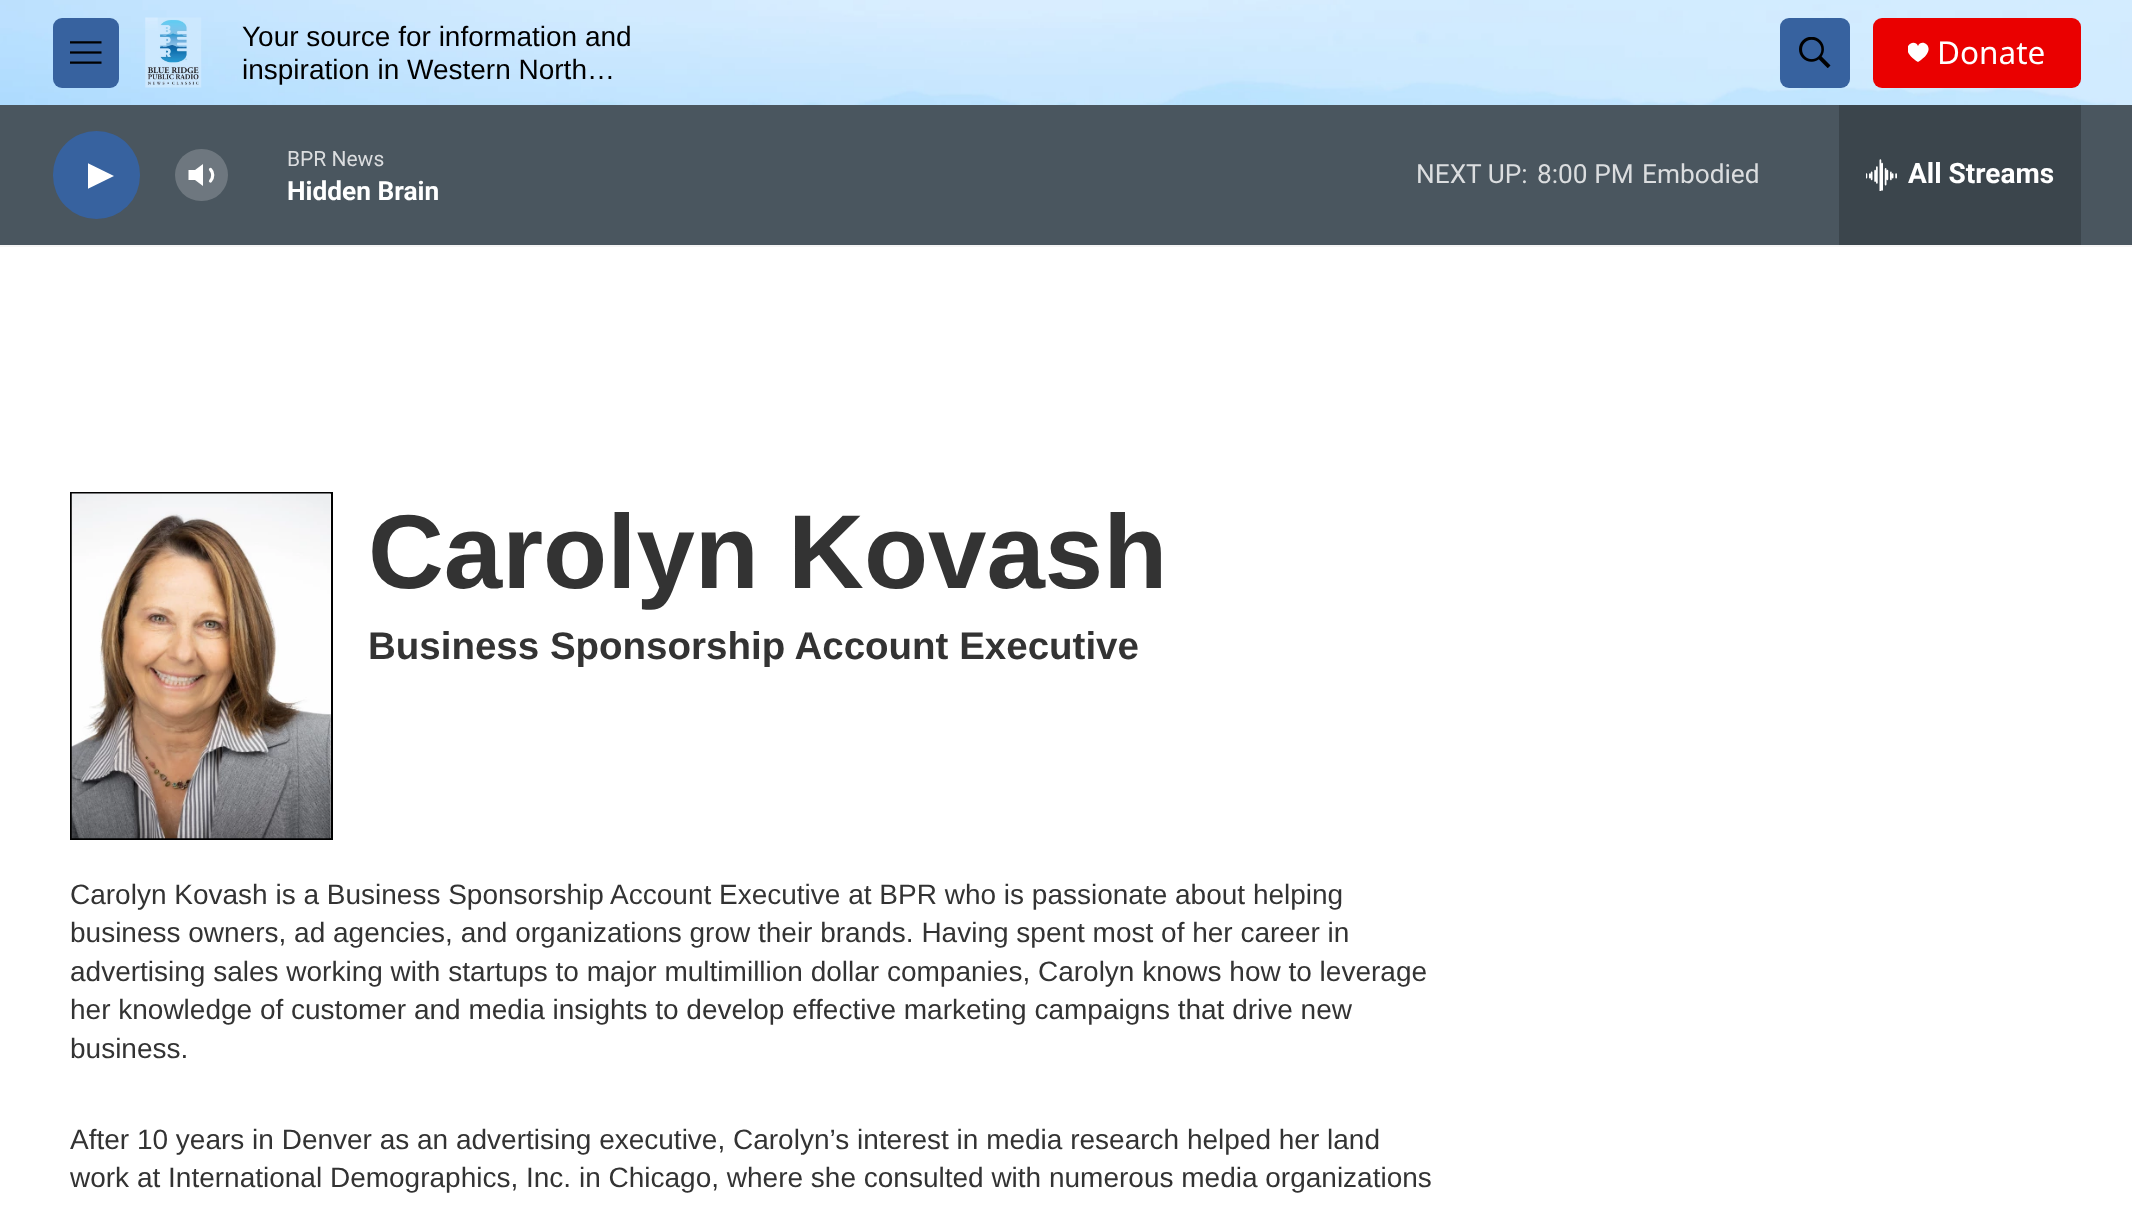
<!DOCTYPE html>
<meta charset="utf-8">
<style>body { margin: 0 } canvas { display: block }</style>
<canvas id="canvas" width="2132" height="1208"></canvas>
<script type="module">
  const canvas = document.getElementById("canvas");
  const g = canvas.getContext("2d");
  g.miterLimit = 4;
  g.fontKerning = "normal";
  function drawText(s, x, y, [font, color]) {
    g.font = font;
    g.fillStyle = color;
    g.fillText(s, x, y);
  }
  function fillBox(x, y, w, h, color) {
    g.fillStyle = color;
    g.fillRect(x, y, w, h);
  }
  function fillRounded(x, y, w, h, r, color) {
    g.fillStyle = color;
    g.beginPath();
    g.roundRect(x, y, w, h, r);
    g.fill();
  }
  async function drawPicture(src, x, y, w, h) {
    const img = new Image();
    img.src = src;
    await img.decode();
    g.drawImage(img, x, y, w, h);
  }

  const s1 = ["28px Liberation Sans", "#000000"];
  const s2 = ["31.5px Noto Sans", "#FFFFFF"];
  const s3 = ["21px Roboto", "#DBDDDF"];
  const s4 = ["bold 26.25px Roboto", "#FFFFFF"];
  const s5 = ["26.25px Roboto", "#DBDDDF"];
  const s6 = ["bold 28px Roboto", "#FFFFFF"];
  const s7 = ["bold 105px Liberation Sans", "#333333"];
  const s8 = ["bold 38.5px Liberation Sans", "#333333"];
  const s9 = ["28px Liberation Sans", "#333333"];

  fillBox(0, 0, 2132, 1208, "#FFFFFF");
  fillBox(0, 245, 2132, 2, "#F5F5F5");
  await drawPicture("pic1.png", 0, 0, 2132, 105);
  fillRounded(53, 18, 66, 70, 9, "#37629F");
  await drawPicture("pic2.png", 70, 41, 32, 23);
  await drawPicture("pic3.png", 145, 17, 57, 71);
  drawText("Your source for information and", 242, 46, s1);
  drawText("inspiration in Western North…", 242, 79, s1);
  fillRounded(1780, 18, 70, 70, 9, "#37629F");
  await drawPicture("pic4.png", 1799, 37, 32, 31);
  fillRounded(1873, 18, 208, 70, 9, "#EA0000");
  g.save();
  g.beginPath();
  g.rect(1908, 42, 21, 21);
  g.clip();
  g.fillStyle = "#FFFFFF";
  g.beginPath();
  g.moveTo(1918, 46);
  g.bezierCurveTo(1914.5, 37, 1896, 48.5, 1918, 62);
  g.bezierCurveTo(1940, 48.5, 1921.5, 37, 1918, 46);
  g.closePath();
  g.fill();
  g.restore();
  drawText("Donate", 1937, 64, s2);
  fillBox(0, 105, 2132, 140, "#4A565F");
  fillRounded(53, 131, 87, 88, 43.5, "#37629F");
  g.save();
  g.beginPath();
  g.rect(88, 159, 26, 34);
  g.clip();
  g.fillStyle = "#FFFFFF";
  g.beginPath();
  g.moveTo(87.5, 163);
  g.lineTo(114, 176);
  g.lineTo(87.5, 189);
  g.closePath();
  g.fill();
  g.restore();
  g.fillStyle = "#FFFFFF";
  g.beginPath();
  g.moveTo(203, 164);
  g.lineTo(195, 170);
  g.lineTo(188.5, 170);
  g.lineTo(188.5, 180);
  g.lineTo(195, 180);
  g.lineTo(203, 186);
  g.closePath();
  g.fill();
  g.beginPath();
  g.moveTo(210.5, 169.5);
  g.bezierCurveTo(213.5, 172.5, 213.5, 177.5, 210.5, 181);
  g.strokeStyle = "#FFFFFF";
  g.lineWidth = 3.2;
  g.lineCap = "round";
  g.lineJoin = "round";
  g.stroke();
  fillRounded(175, 149, 53, 52, 26, "rgba(255, 255, 255, 0.2)");
  drawText("BPR News", 287, 166, s3);
  drawText("Hidden Brain", 287, 200, s4);
  drawText("NEXT UP:", 1416, 183, s5);
  drawText("8:00 PM", 1537, 183, s5);
  drawText("Embodied", 1642, 183, s5);
  fillBox(1839, 105, 242, 140, "#3B454C");
  await drawPicture("pic5.png", 1866, 159, 31, 32);
  drawText("All Streams", 1908, 183, s6);
  g.strokeStyle = "#000000";
  g.lineWidth = 2;
  g.lineJoin = "miter";
  g.strokeRect(71, 493, 261, 346);
  await drawPicture("pic6.png", 71, 493, 260, 346);
  drawText("Carolyn Kovash", 368, 588, s7);
  drawText("Business Sponsorship Account Executive", 368, 659, s8);
  drawText("Carolyn Kovash is a Business Sponsorship Account Executive at BPR who is passionate about helping", 70, 904, s9);
  drawText("business owners, ad agencies, and organizations grow their brands. Having spent most of her career in", 70, 942, s9);
  drawText("advertising sales working with startups to major multimillion dollar companies, Carolyn knows how to leverage", 70, 981, s9);
  drawText("her knowledge of customer and media insights to develop effective marketing campaigns that drive new", 70, 1019, s9);
  drawText("business.", 70, 1058, s9);
  drawText("After 10 years in Denver as an advertising executive, Carolyn’s interest in media research helped her land", 70, 1149, s9);
  drawText("work at International Demographics, Inc. in Chicago, where she consulted with numerous media organizations", 70, 1187, s9);
</script>
